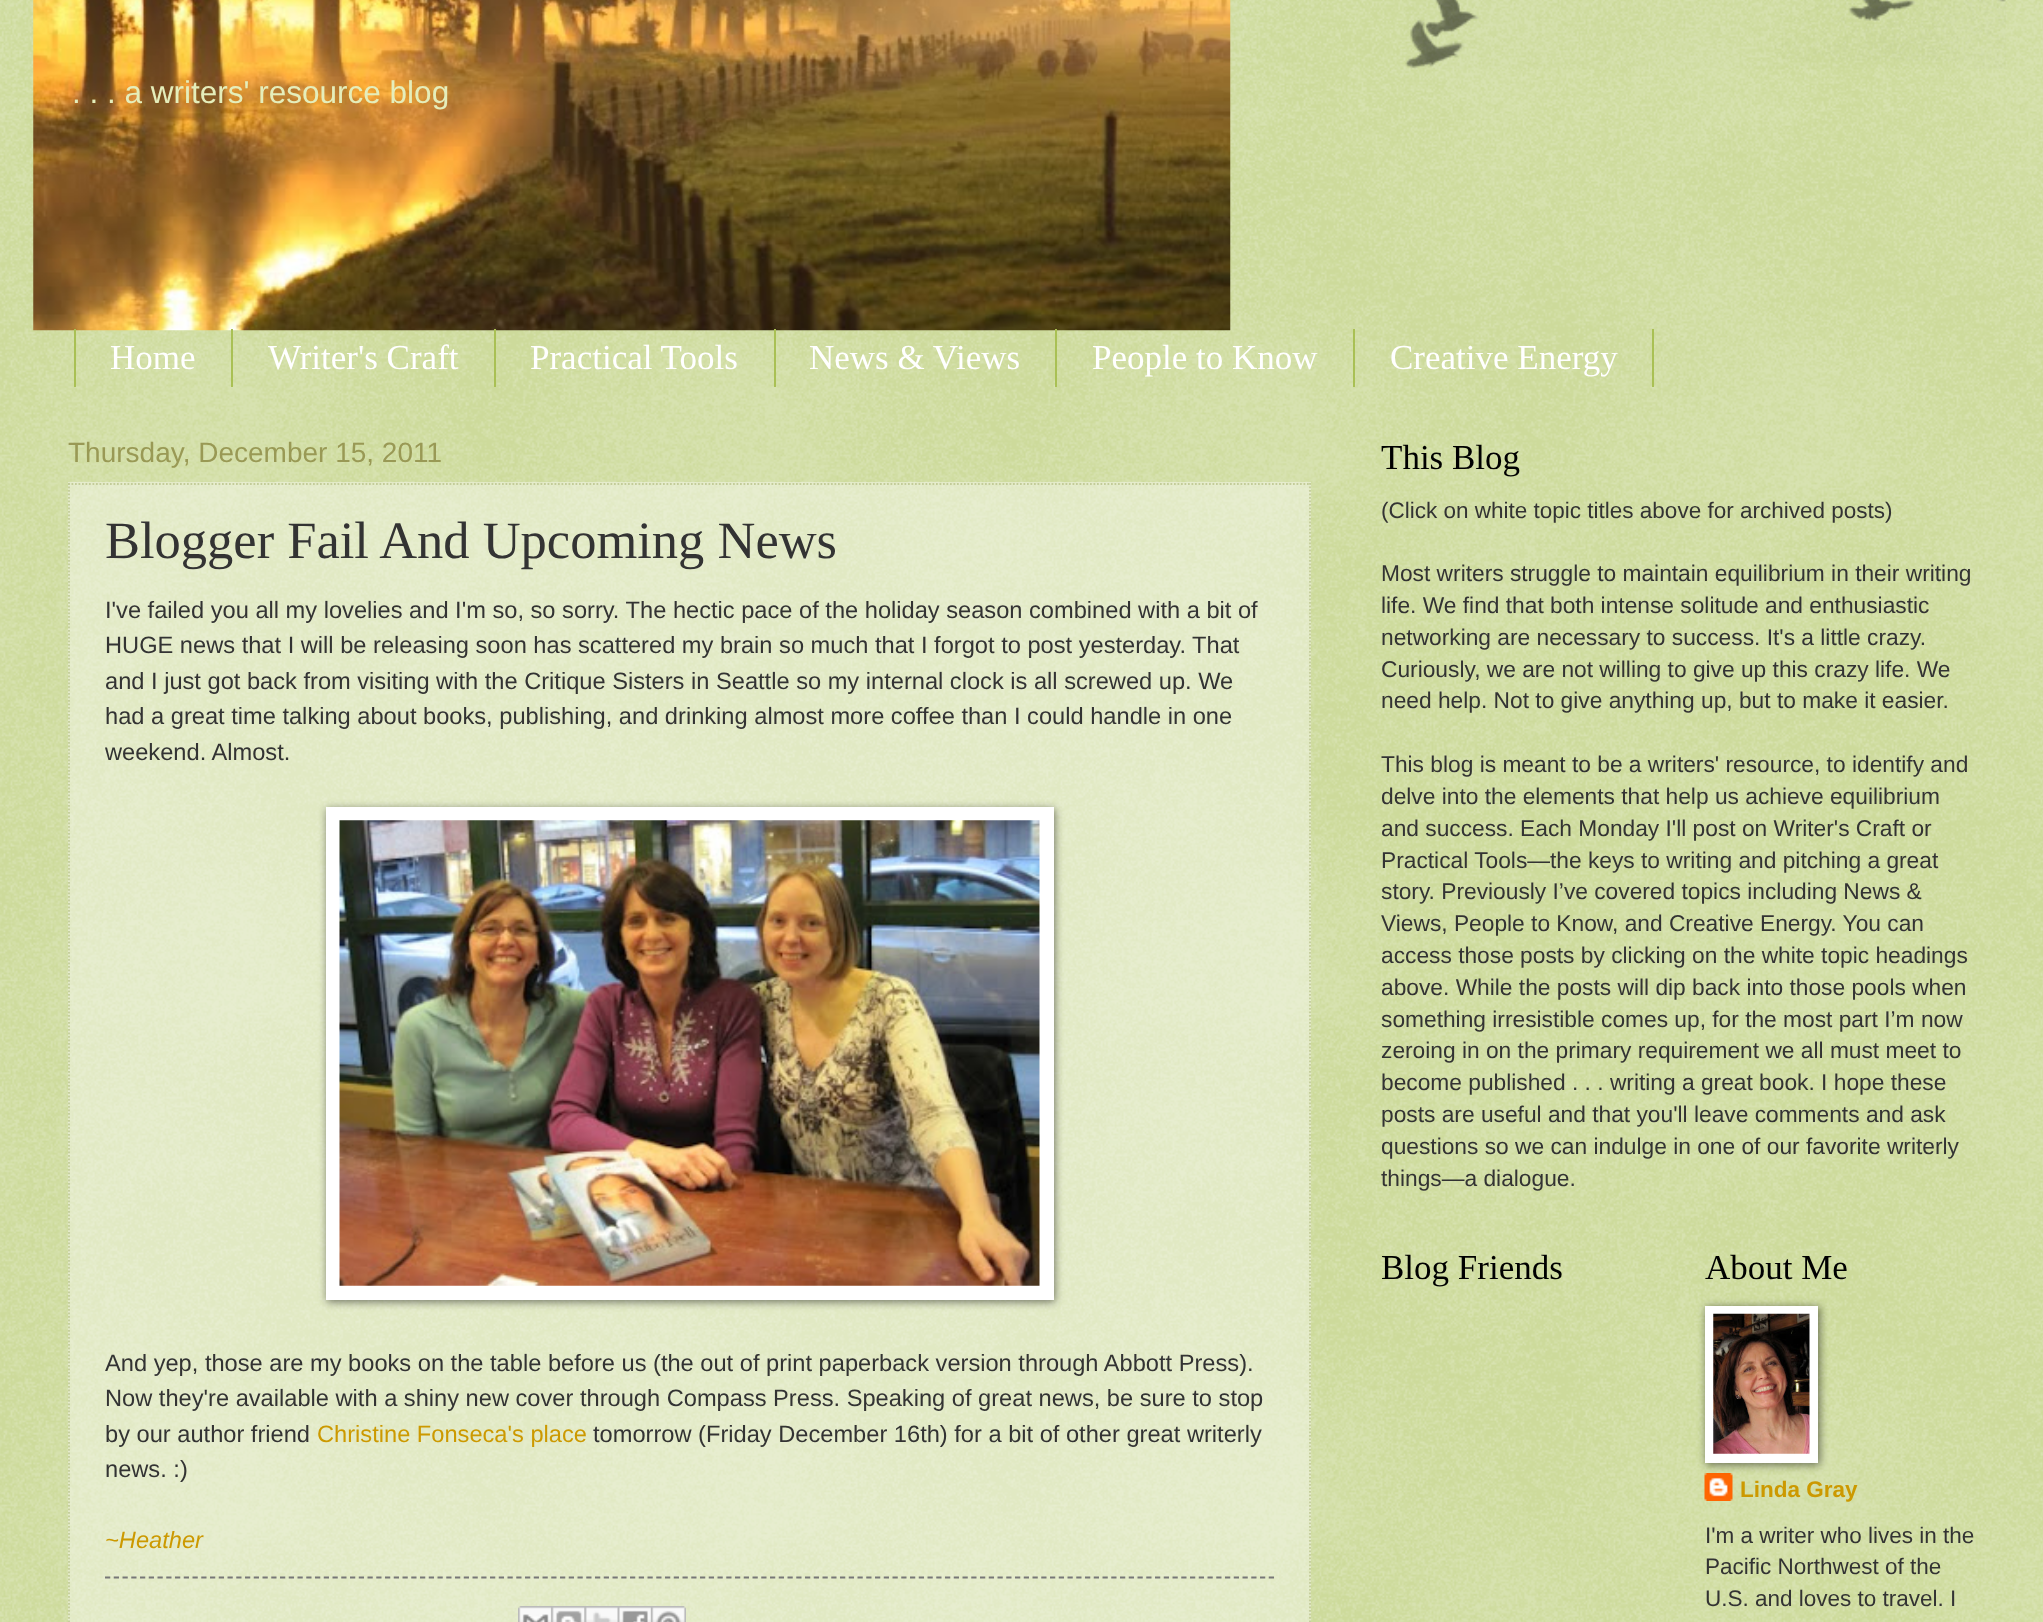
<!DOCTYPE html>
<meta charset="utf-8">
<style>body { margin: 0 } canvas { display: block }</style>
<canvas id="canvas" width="2043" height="1622"></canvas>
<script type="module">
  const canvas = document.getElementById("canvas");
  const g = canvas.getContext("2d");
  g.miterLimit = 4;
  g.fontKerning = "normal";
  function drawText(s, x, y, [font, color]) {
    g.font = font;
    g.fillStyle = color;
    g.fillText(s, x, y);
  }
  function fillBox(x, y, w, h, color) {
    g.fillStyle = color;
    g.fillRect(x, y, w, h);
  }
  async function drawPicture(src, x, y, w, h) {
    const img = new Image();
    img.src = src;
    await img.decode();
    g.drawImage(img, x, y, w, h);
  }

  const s1 = ["31.5px Liberation Sans", "#E5EEBB"];
  const s2 = ["35px Liberation Serif", "#FFFFFF"];
  const s3 = ["28px Liberation Sans", "#999955"];
  const s4 = ["52.5px Liberation Serif", "#333333"];
  const s5 = ["23.65px Liberation Sans", "#333333"];
  const s6 = ["23.65px Liberation Sans", "#CC9900"];
  const s7 = ["italic 23.65px Liberation Sans", "#CC9900"];
  const s8 = ["35px Liberation Serif", "#000000"];
  const s9 = ["22.5px Liberation Sans", "#333333"];
  const s10 = ["22.75px Liberation Sans", "#333333"];
  const s11 = ["bold 22.5px Liberation Sans", "#CC9900"];

  fillBox(0, 0, 2043, 1622, "#A9C054");
  await drawPicture("pic1.png", 0, 0, 2043, 1622);
  await drawPicture("pic2.png", 1405, 0, 601, 69);
  await drawPicture("pic3.png", 33, 0, 1198, 331);
  drawText(". . . a writers' resource blog", 72, 103, s1);
  fillBox(231, 329, 2, 58, "#A9C054");
  fillBox(74, 329, 2, 58, "#A9C054");
  drawText("Home", 110, 369, s2);
  fillBox(494, 329, 2, 58, "#A9C054");
  drawText("Writer's Craft", 268, 369, s2);
  fillBox(774, 329, 2, 58, "#A9C054");
  drawText("Practical Tools", 530, 369, s2);
  fillBox(1055, 329, 2, 58, "#A9C054");
  drawText("News & Views", 809, 369, s2);
  fillBox(1353, 329, 2, 58, "#A9C054");
  drawText("People to Know", 1092, 369, s2);
  fillBox(1652, 329, 2, 58, "#A9C054");
  drawText("Creative Energy", 1390, 369, s2);
  drawText("Thursday, December 15, 2011", 68, 462, s3);
  fillBox(68, 482, 1243, 1140, "rgba(255, 255, 255, 0.4)");
  g.beginPath();
  g.moveTo(68, 484);
  g.lineTo(1311, 484);
  g.strokeStyle = "#C3CC99";
  g.lineWidth = 1.8;
  g.setLineDash([1.75, 1.75]);
  g.stroke();
  g.beginPath();
  g.moveTo(1310, 483);
  g.lineTo(1310, 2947);
  g.stroke();
  g.beginPath();
  g.moveTo(69, 483);
  g.lineTo(69, 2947);
  g.stroke();
  drawText("Blogger Fail And Upcoming News", 105, 558, s4);
  drawText("I've failed you all my lovelies and I'm so, so sorry. The hectic pace of the holiday season combined with a bit of", 105, 618, s5);
  drawText("HUGE news that I will be releasing soon has scattered my brain so much that I forgot to post yesterday. That", 105, 653, s5);
  drawText("and I just got back from visiting with the Critique Sisters in Seattle so my internal clock is all screwed up. We", 105, 689, s5);
  drawText("had a great time talking about books, publishing, and drinking almost more coffee than I could handle in one", 105, 724, s5);
  drawText("weekend. Almost.", 105, 760, s5);
  g.fillStyle = "rgba(0, 0, 0, 0.5)";
  g.filter = "blur(4.5px)";
  g.beginPath();
  g.rect(327, 809, 728, 493);
  g.fill();
  g.filter = "none";
  fillBox(326, 807, 728, 493, "#FFFFFF");
  await drawPicture("pic4.png", 339, 820, 701, 466);
  drawText("And yep, those are my books on the table before us (the out of print paperback version through Abbott Press).", 105, 1371, s5);
  drawText("Now they're available with a shiny new cover through Compass Press. Speaking of great news, be sure to stop", 105, 1406, s5);
  drawText("by our author friend", 105, 1442, s5);
  drawText("Christine Fonseca's place", 317, 1442, s6);
  drawText("tomorrow (Friday December 16th) for a bit of other great writerly", 593, 1442, s5);
  drawText("news. :)", 105, 1477, s5);
  drawText("~Heather", 105, 1548, s7);
  g.beginPath();
  g.moveTo(105, 1577.5);
  g.lineTo(1274, 1577.5);
  g.strokeStyle = "#777777";
  g.setLineDash([5.25, 3.5]);
  g.stroke();
  await drawPicture("pic5.png", 518, 1606, 34, 16);
  await drawPicture("pic6.png", 551, 1606, 34, 16);
  await drawPicture("pic7.png", 584, 1606, 34, 16);
  await drawPicture("pic8.png", 617, 1606, 34, 16);
  await drawPicture("pic9.png", 651, 1606, 35, 16);
  drawText("This Blog", 1381, 469, s8);
  drawText("(Click on white topic titles above for archived posts)", 1381, 518, s9);
  drawText("Most writers struggle to maintain equilibrium in their writing", 1381, 581, s10);
  drawText("life. We find that both intense solitude and enthusiastic", 1381, 613, s10);
  drawText("networking are necessary to success. It's a little crazy.", 1381, 645, s10);
  drawText("Curiously, we are not willing to give up this crazy life. We", 1381, 677, s10);
  drawText("need help. Not to give anything up, but to make it easier.", 1381, 708, s10);
  drawText("This blog is meant to be a writers' resource, to identify and", 1381, 772, s10);
  drawText("delve into the elements that help us achieve equilibrium", 1381, 804, s10);
  drawText("and success. Each Monday I'll post on Writer's Craft or", 1381, 836, s10);
  drawText("Practical Tools—the keys to writing and pitching a great", 1381, 868, s10);
  drawText("story. Previously I’ve covered topics including News &", 1381, 899, s10);
  drawText("Views, People to Know, and Creative Energy. You can", 1381, 931, s10);
  drawText("access those posts by clicking on the white topic headings", 1381, 963, s10);
  drawText("above. While the posts will dip back into those pools when", 1381, 995, s10);
  drawText("something irresistible comes up, for the most part I’m now", 1381, 1027, s10);
  drawText("zeroing in on the primary requirement we all must meet to", 1381, 1058, s10);
  drawText("become published . . . writing a great book. I hope these", 1381, 1090, s10);
  drawText("posts are useful and that you'll leave comments and ask", 1381, 1122, s10);
  drawText("questions so we can indulge in one of our favorite writerly", 1381, 1154, s10);
  drawText("things—a dialogue.", 1381, 1186, s10);
  drawText("Blog Friends", 1381, 1279, s8);
  drawText("About Me", 1705, 1279, s8);
  await drawPicture("pic11.png", 1704, 1473, 29, 28);
  g.fillStyle = "rgba(0, 0, 0, 0.5)";
  g.filter = "blur(4.5px)";
  g.beginPath();
  g.rect(1706, 1307, 114, 158);
  g.fill();
  g.filter = "none";
  fillBox(1705, 1306, 113, 157, "#FFFFFF");
  await drawPicture("pic10.png", 1713, 1313, 97, 141);
  drawText("Linda Gray", 1740, 1497, s11);
  drawText("I'm a writer who lives in the", 1705, 1543, s9);
  drawText("Pacific Northwest of the", 1705, 1574, s9);
  drawText("U.S. and loves to travel. I", 1705, 1606, s9);
</script>
